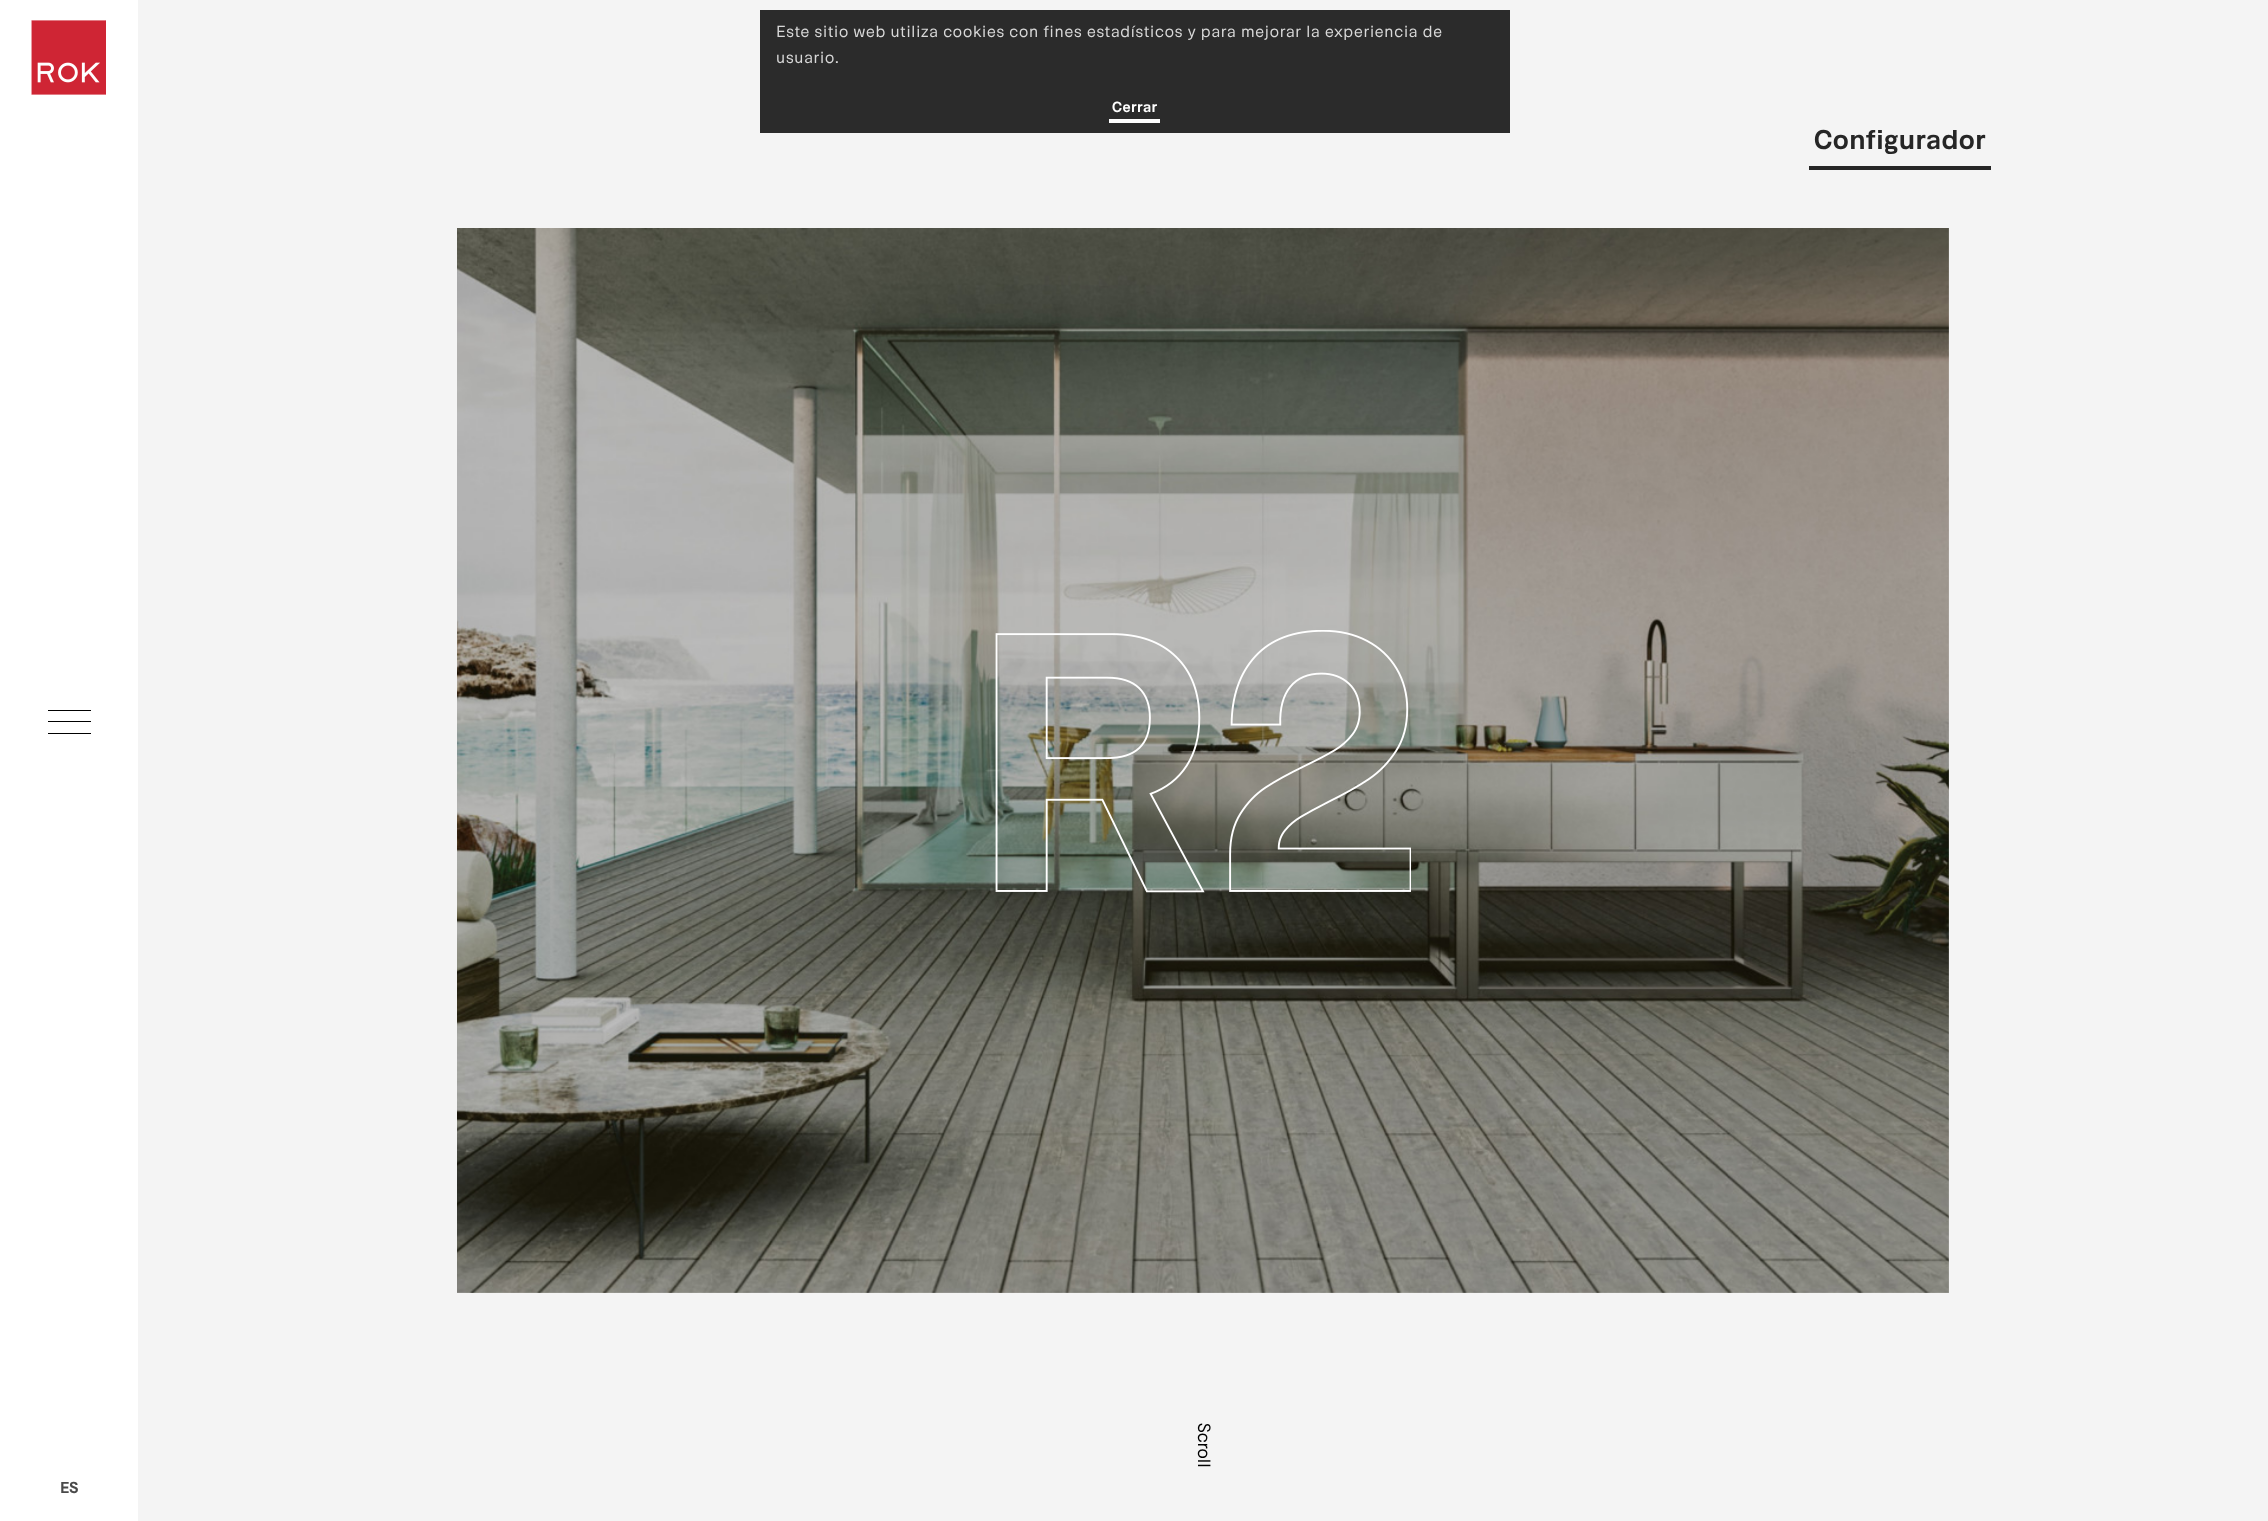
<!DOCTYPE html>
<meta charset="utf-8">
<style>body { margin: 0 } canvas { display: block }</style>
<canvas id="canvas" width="2268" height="1521"></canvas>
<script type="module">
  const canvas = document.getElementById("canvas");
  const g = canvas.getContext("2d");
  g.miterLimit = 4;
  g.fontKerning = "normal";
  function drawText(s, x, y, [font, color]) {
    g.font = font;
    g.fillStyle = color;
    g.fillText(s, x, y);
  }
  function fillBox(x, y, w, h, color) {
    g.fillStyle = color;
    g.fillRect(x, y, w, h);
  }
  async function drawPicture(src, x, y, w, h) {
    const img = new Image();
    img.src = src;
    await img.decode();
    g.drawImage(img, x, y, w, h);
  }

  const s1 = ["16.25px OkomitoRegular", "#D8D8D8"];
  const s2 = ["bold 15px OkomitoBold", "#FFFFFF"];
  const s3 = ["bold 27.5px OkomitoBold", "#262626"];
  const s4 = ["bold 16px OkomitoBold", "#4A4A4A"];

  fillBox(0, 0, 2268, 1521, "#F4F4F4");
  fillBox(760, 10, 750, 123, "#2B2B2B");
  g.letterSpacing = "0.8px";
  drawText("Este sitio web utiliza cookies con fines estadísticos y para mejorar la experiencia de", 776, 37, s1);
  drawText("usuario.", 776, 63, s1);
  g.letterSpacing = "0.5px";
  drawText("Cerrar", 1112, 112, s2);
  fillBox(1109, 119, 51, 4, "#FFFFFF");
  drawText("Configurador", 1814, 149, s3);
  fillBox(1809, 166, 182, 4, "#262626");
  await drawPicture("pic1.png", 457, 228, 1492, 1065);
  await drawPicture("pic2.png", 995, 630, 416, 263);
  g.letterSpacing = "0px";
  g.font = "18px OkomitoRegular";
  g.fillStyle = "#000000";
  g.save();
  g.translate(1198, 1423);
  g.rotate(90 * Math.PI / 180);
  g.fillText("Scroll", 0, 0);
  g.restore();
  fillBox(0, 0, 138, 1521, "#FFFFFF");
  await drawPicture("pic3.png", 31, 20, 75, 75);
  fillBox(48, 710, 43, 1, "#000000");
  fillBox(48, 721, 43, 1, "#000000");
  fillBox(48, 733, 43, 1, "#000000");
  drawText("ES", 60, 1493, s4);
</script>
